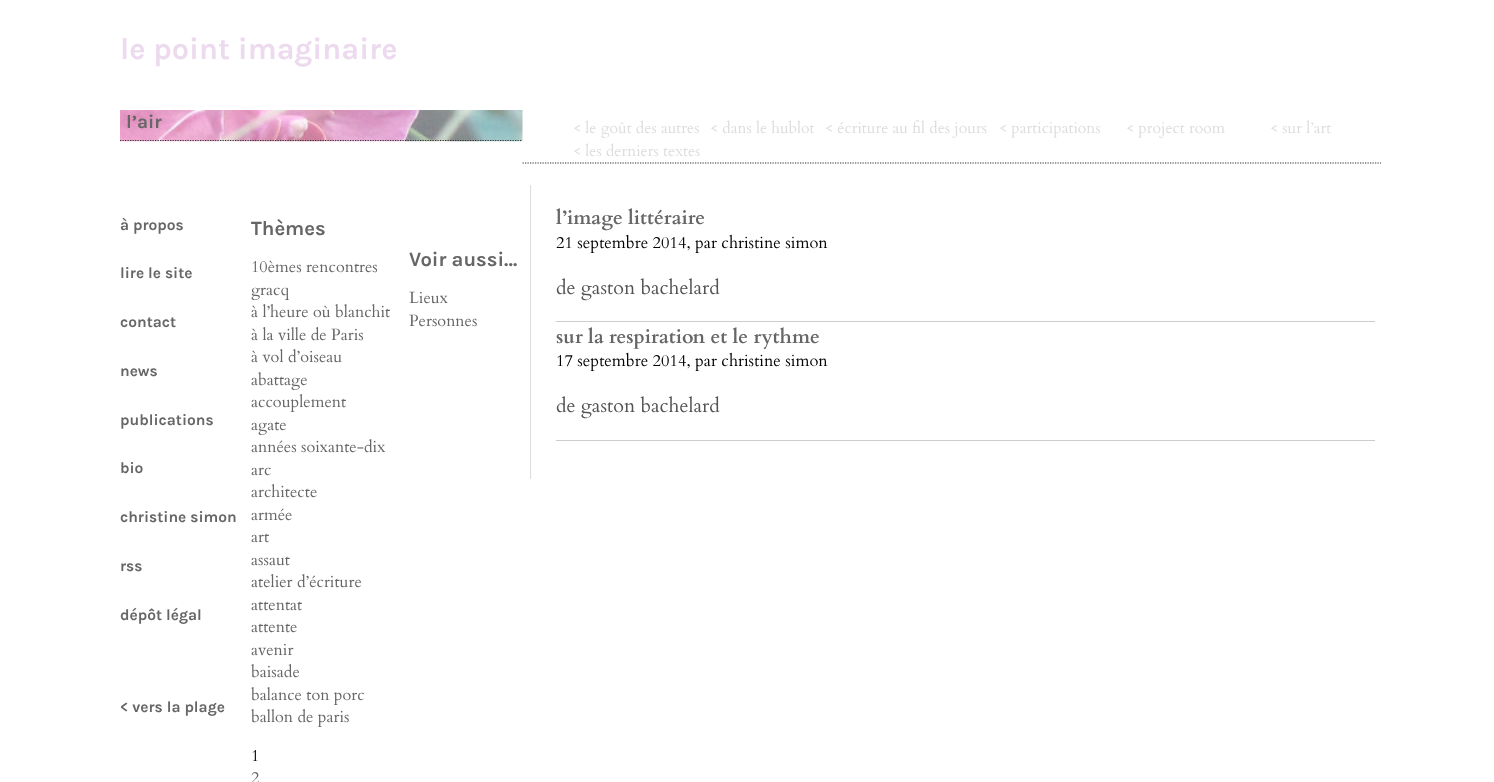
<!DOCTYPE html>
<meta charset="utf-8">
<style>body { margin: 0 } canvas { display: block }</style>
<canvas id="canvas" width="1494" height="782"></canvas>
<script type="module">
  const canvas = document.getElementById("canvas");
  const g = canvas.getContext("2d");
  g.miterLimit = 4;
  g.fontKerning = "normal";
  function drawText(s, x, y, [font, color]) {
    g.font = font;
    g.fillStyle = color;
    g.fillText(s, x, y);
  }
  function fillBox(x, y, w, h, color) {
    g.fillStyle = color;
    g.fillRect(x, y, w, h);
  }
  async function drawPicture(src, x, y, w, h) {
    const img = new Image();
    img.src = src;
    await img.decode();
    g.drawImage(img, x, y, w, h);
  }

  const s1 = ["bold 30.5px Karla", "#EDDAEE"];
  const s2 = ["bold 19px Karla", "#666666"];
  const s3 = ["15.75px Cardo", "#DDDDDD"];
  const s4 = ["bold 15.5px Karla", "#666666"];
  const s5 = ["bold 20.25px Karla", "#666666"];
  const s6 = ["16.25px Cardo", "#666666"];
  const s7 = ["16.25px Cardo", "#000000"];
  const s8 = ["bold 19.75px Cardo", "#666666"];
  const s9 = ["16.5px Cardo", "#000000"];
  const s10 = ["19.75px Cardo", "#535353"];

  fillBox(0, 0, 1494, 782, "#FFFFFF");
  drawText("le point imaginaire", 120, 59, s1);
  await drawPicture("pic1.png", 120, 110, 403, 32);
  g.beginPath();
  g.moveTo(120, 140.5);
  g.lineTo(522.5, 140.5);
  g.strokeStyle = "#333333";
  g.lineWidth = 1.2;
  g.setLineDash([1.25, 1.25]);
  g.stroke();
  drawText("l’air", 126, 128, s2);
  g.beginPath();
  g.moveTo(522.5, 163);
  g.lineTo(1381, 163);
  g.stroke();
  drawText("< le goût des autres", 573, 133, s3);
  drawText("< dans le hublot", 710, 133, s3);
  drawText("< écriture au fil des jours", 825, 133, s3);
  drawText("< participations", 999, 133, s3);
  drawText("< project room", 1126, 133, s3);
  drawText("< sur l’art", 1270, 133, s3);
  drawText("< les derniers textes", 573, 156, s3);
  drawText("à propos", 120, 230, s4);
  drawText("lire le site", 120, 278, s4);
  drawText("contact", 120, 327, s4);
  drawText("news", 120, 376, s4);
  drawText("publications", 120, 425, s4);
  drawText("bio", 120, 473, s4);
  drawText("christine simon", 120, 522, s4);
  drawText("rss", 120, 571, s4);
  drawText("dépôt légal", 120, 620, s4);
  drawText("< vers la plage", 120, 712, s4);
  drawText("Thèmes", 251, 235, s5);
  drawText("10èmes rencontres", 251, 272, s6);
  drawText("gracq", 251, 295, s6);
  drawText("à l’heure où blanchit", 251, 317, s6);
  drawText("à la ville de Paris", 251, 340, s6);
  drawText("à vol d’oiseau", 251, 362, s6);
  drawText("abattage", 251, 385, s6);
  drawText("accouplement", 251, 407, s6);
  drawText("agate", 251, 430, s6);
  drawText("années soixante-dix", 251, 452, s6);
  drawText("arc", 251, 475, s6);
  drawText("architecte", 251, 497, s6);
  drawText("armée", 251, 520, s6);
  drawText("art", 251, 542, s6);
  drawText("assaut", 251, 565, s6);
  drawText("atelier d’écriture", 251, 587, s6);
  drawText("attentat", 251, 610, s6);
  drawText("attente", 251, 632, s6);
  drawText("avenir", 251, 655, s6);
  drawText("baisade", 251, 677, s6);
  drawText("balance ton porc", 251, 700, s6);
  drawText("ballon de paris", 251, 722, s6);
  drawText("1", 251, 761, s7);
  drawText("2", 251, 783, s6);
  drawText("Voir aussi…", 409, 266, s5);
  drawText("Lieux", 409, 303, s6);
  drawText("Personnes", 409, 326, s6);
  fillBox(530, 185, 1, 294, "#DDDDDD");
  fillBox(556, 321, 819, 1, "#CCCCCC");
  drawText("l’image littéraire", 556, 224, s8);
  drawText("21 septembre 2014, par christine simon", 556, 248, s9);
  drawText("de gaston bachelard", 556, 294, s10);
  fillBox(556, 440, 819, 1, "#CCCCCC");
  drawText("sur la respiration et le rythme", 556, 343, s8);
  drawText("17 septembre 2014, par christine simon", 556, 366, s9);
  drawText("de gaston bachelard", 556, 412, s10);
</script>
